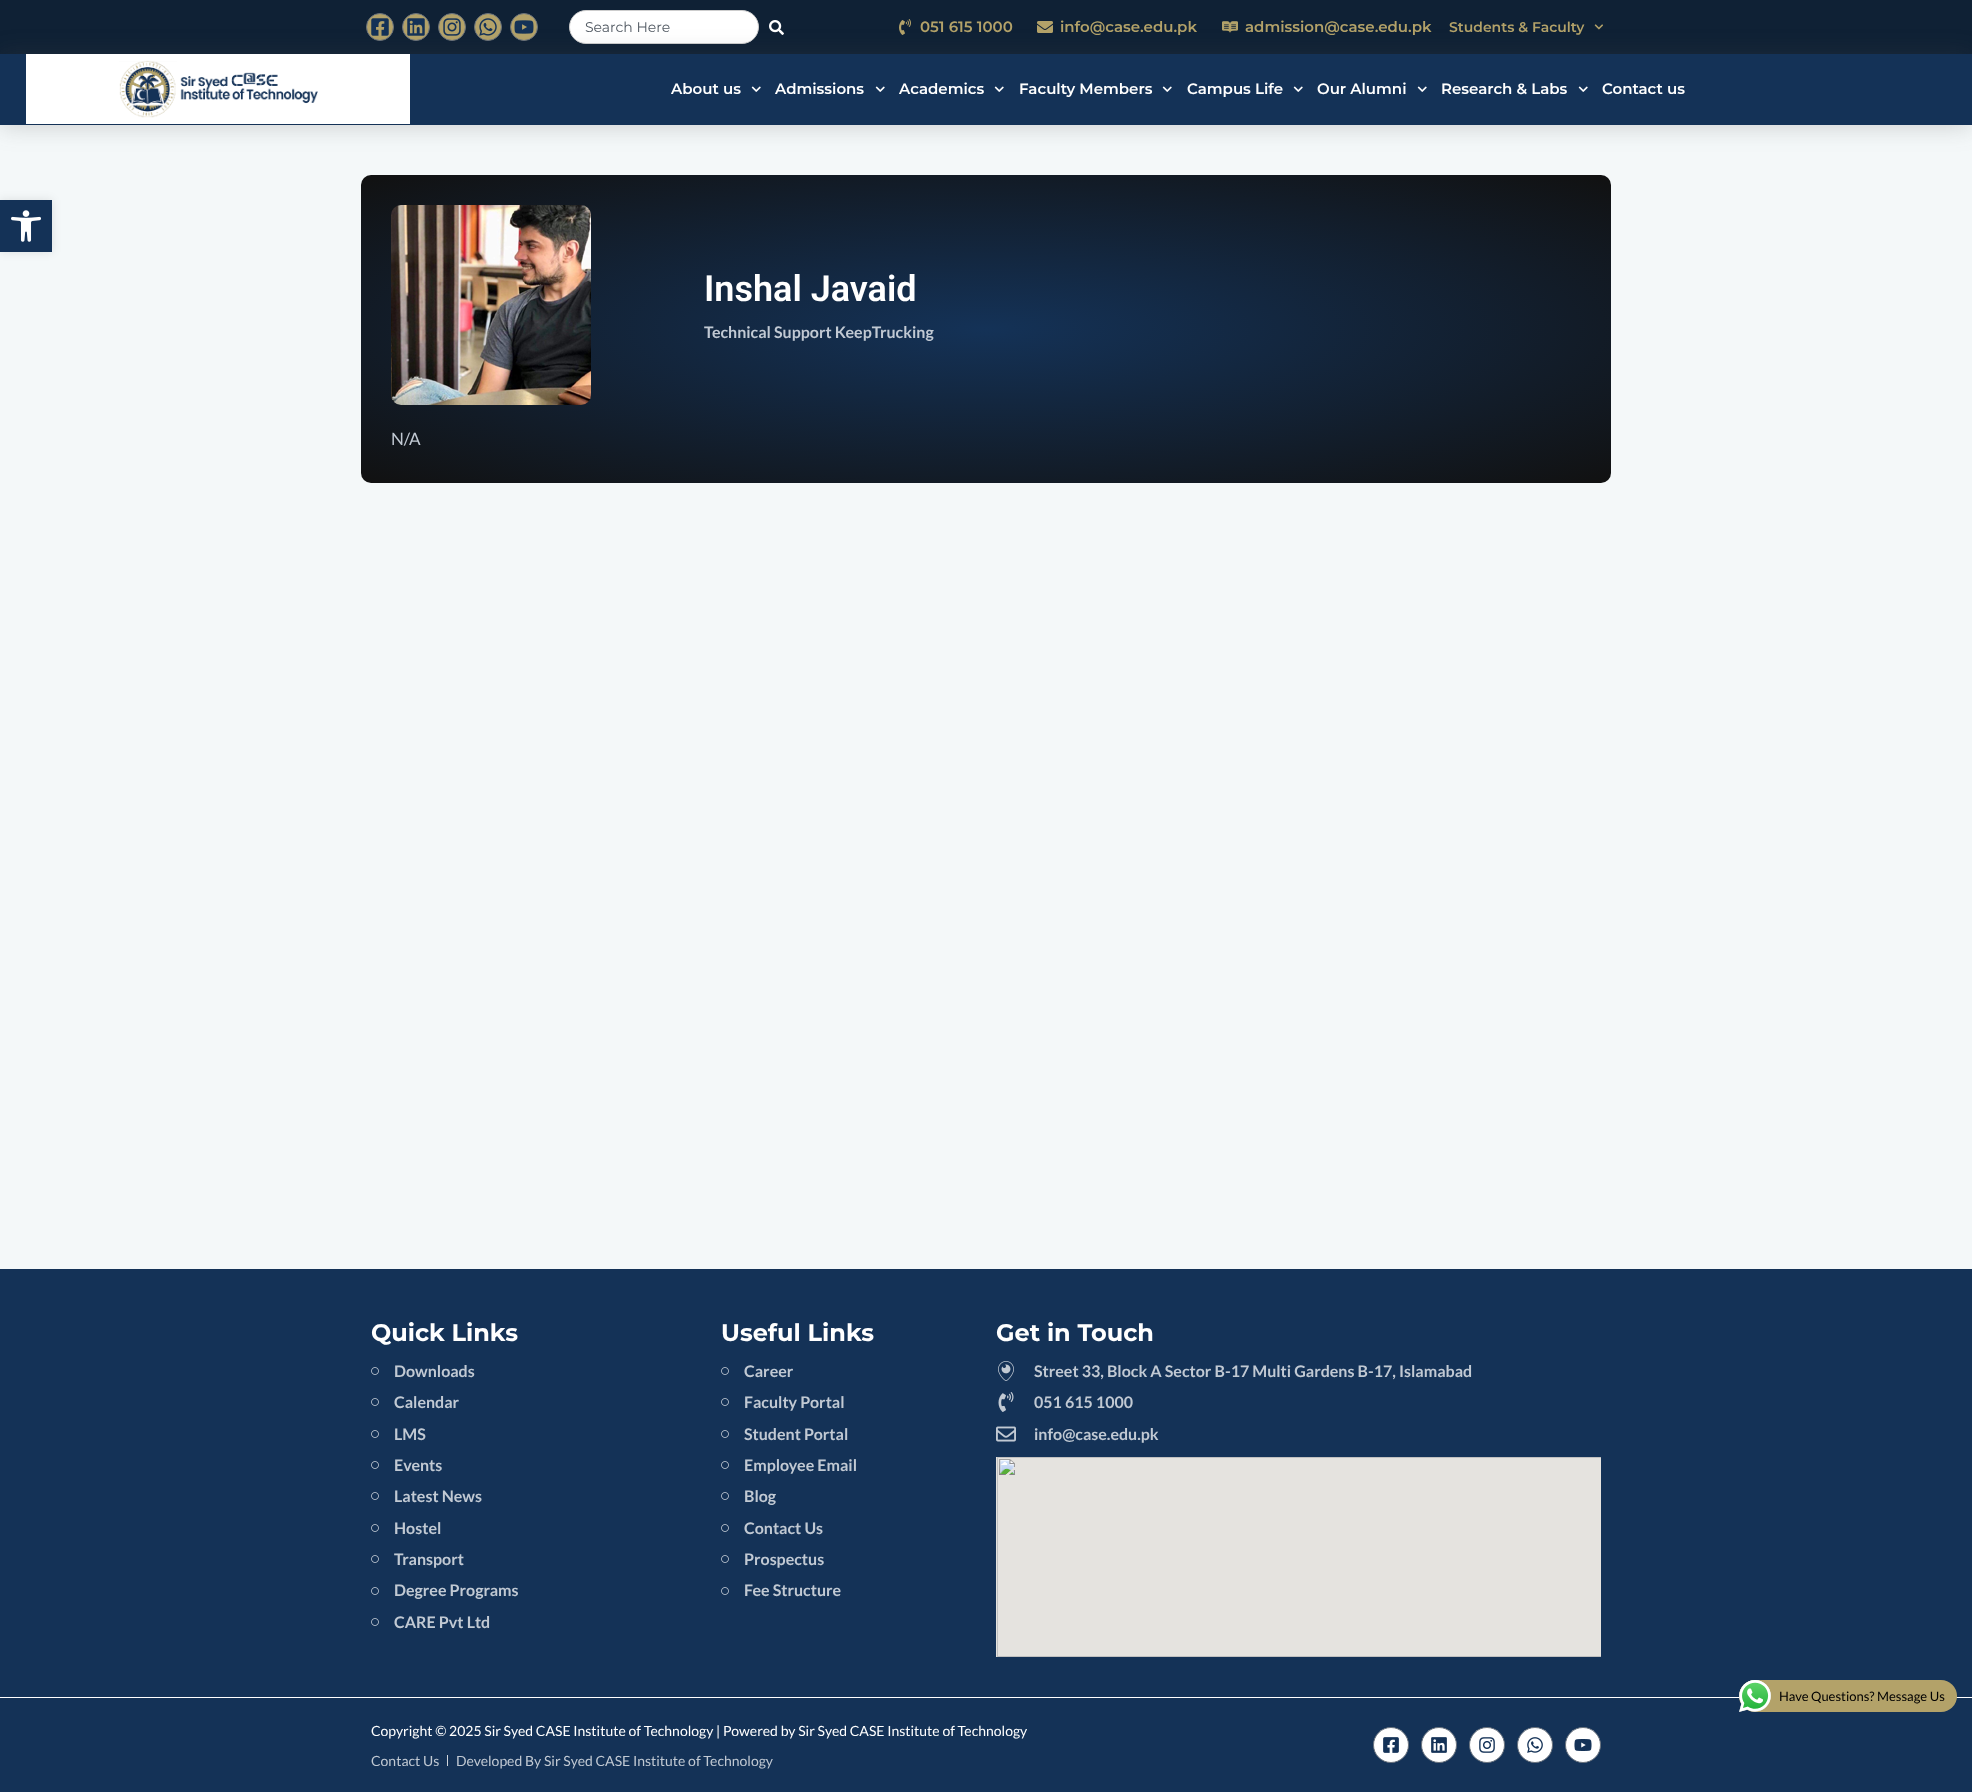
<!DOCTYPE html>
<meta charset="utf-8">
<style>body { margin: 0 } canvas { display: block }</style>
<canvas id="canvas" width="1972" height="1792"></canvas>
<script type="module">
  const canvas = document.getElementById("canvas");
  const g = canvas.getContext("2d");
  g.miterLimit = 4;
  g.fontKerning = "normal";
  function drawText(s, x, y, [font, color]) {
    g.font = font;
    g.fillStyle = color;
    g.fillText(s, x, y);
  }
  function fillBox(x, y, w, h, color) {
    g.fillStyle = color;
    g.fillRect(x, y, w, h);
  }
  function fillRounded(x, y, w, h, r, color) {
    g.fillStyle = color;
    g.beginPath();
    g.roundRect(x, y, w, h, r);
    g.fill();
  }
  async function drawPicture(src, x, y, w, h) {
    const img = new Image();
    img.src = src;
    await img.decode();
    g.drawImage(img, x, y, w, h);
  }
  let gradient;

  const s1 = ["14px Montserrat", "#515962"];
  const s2 = ["600 15px Montserrat", "#B3A269"];
  const s3 = ["600 14px Montserrat", "#B3A269"];
  const s4 = ["600 15px Montserrat", "#FFFFFF"];
  const s5 = ["600 36px Roboto", "#FFFFFF"];
  const s6 = ["bold 16px Lato", "#C1C9D3"];
  const s7 = ["17px Lato", "#C1C9D3"];
  const s8 = ["bold 24px Montserrat", "#FFFFFF"];
  const s9 = ["14px Lato", "#FFFFFF"];
  const s10 = ["14px Lato", "#C1C9D3"];
  const s11 = ["13px Lato", "#000000"];

  fillBox(0, 0, 1972, 1792, "#F4F8F9");
  g.fillStyle = "rgba(0, 0, 0, 0.1)";
  g.filter = "blur(5px)";
  g.beginPath();
  g.rect(0, 200, 52, 52);
  g.fill();
  g.filter = "none";
  fillBox(0, 200, 52, 52, "#143257");
  await drawPicture("pic1.png", 11, 210, 30, 32);
  fillBox(0, 0, 1972, 54, "#0F2135");
  g.fillStyle = "#B3A269";
  g.beginPath();
  g.arc(380, 27, 13.5, 0, Math.PI * 2);
  g.fill();
  g.strokeStyle = "#69727D";
  g.stroke();
  await drawPicture("pic2.png", 371, 18, 18, 18);
  g.beginPath();
  g.arc(416, 27, 13.5, 0, Math.PI * 2);
  g.fill();
  g.stroke();
  await drawPicture("pic3.png", 407, 18, 18, 18);
  g.beginPath();
  g.arc(452, 27, 13.5, 0, Math.PI * 2);
  g.fill();
  g.stroke();
  await drawPicture("pic4.png", 443, 18, 18, 18);
  g.beginPath();
  g.arc(488, 27, 13.5, 0, Math.PI * 2);
  g.fill();
  g.stroke();
  await drawPicture("pic5.png", 479, 18, 18, 18);
  g.beginPath();
  g.arc(524, 27, 13.5, 0, Math.PI * 2);
  g.fill();
  g.stroke();
  await drawPicture("pic6.png", 514, 20, 20, 14);
  g.fillStyle = "#FFFFFF";
  g.beginPath();
  g.roundRect(569.5, 10.5, 189, 33, 16.5);
  g.fill();
  g.strokeStyle = "#CDCDCD";
  g.stroke();
  drawText("Search Here", 585, 32, s1);
  await drawPicture("pic7.png", 769, 20, 15, 15);
  await drawPicture("pic8.png", 899, 19, 12, 16);
  drawText("051 615 1000", 920, 32, s2);
  await drawPicture("pic9.png", 1037, 21, 16, 12);
  drawText("info@case.edu.pk", 1060, 32, s2);
  await drawPicture("pic10.png", 1222, 21, 16, 12);
  drawText("admission@case.edu.pk", 1245, 32, s2);
  g.fillStyle = "rgba(75, 75, 75, 0.24)";
  g.filter = "blur(12.5px)";
  g.beginPath();
  g.rect(0, 55, 1972, 71);
  g.fill();
  g.filter = "none";
  drawText("Students & Faculty", 1449, 32, s3);
  await drawPicture("pic11.png", 1594, 24, 9, 6);
  fillBox(0, 54, 1972, 71, "#143257");
  fillBox(26, 54, 384, 70, "#FFFFFF");
  await drawPicture("pic12.png", 119, 60, 199, 58);
  drawText("About us", 671, 94, s4);
  await drawPicture("pic13.png", 751, 86, 10, 6);
  drawText("Admissions", 775, 94, s4);
  await drawPicture("pic13.png", 875, 86, 10, 6);
  drawText("Academics", 899, 94, s4);
  await drawPicture("pic13.png", 994, 86, 10, 6);
  drawText("Faculty Members", 1019, 94, s4);
  await drawPicture("pic13.png", 1162, 86, 10, 6);
  drawText("Campus Life", 1187, 94, s4);
  await drawPicture("pic13.png", 1293, 86, 10, 6);
  drawText("Our Alumni", 1317, 94, s4);
  await drawPicture("pic13.png", 1417, 86, 10, 6);
  drawText("Research & Labs", 1441, 94, s4);
  await drawPicture("pic13.png", 1578, 86, 10, 6);
  drawText("Contact us", 1602, 94, s4);
  gradient = g.createRadialGradient(986, 1334.11, 0, 986, 1334.11, 884);
  gradient.addColorStop(0, "#143257");
  gradient.addColorStop(1, "#111111");
  g.fillStyle = gradient;
  g.beginPath();
  g.roundRect(361, 175, 1250, 308, 10);
  g.save();
  g.clip();
  g.scale(1, 218 / 884);
  g.fillRect(0, 0, 1972, 7267);
  g.restore();
  await drawPicture("pic14.png", 391, 205, 200, 200);
  drawText("Inshal Javaid", 704, 301, s5);
  drawText("Technical Support KeepTrucking", 704, 338, s6);
  drawText("N/A", 391, 445, s7);
  fillBox(0, 1269, 1972, 428, "#143257");
  drawText("Quick Links", 371, 1341, s8);
  await drawPicture("pic15.png", 371, 1367, 8, 8);
  drawText("Downloads", 394, 1377, s6);
  await drawPicture("pic15.png", 371, 1398, 8, 8);
  drawText("Calendar", 394, 1408, s6);
  await drawPicture("pic15.png", 371, 1430, 8, 8);
  drawText("LMS", 394, 1440, s6);
  await drawPicture("pic15.png", 371, 1461, 8, 8);
  drawText("Events", 394, 1471, s6);
  await drawPicture("pic15.png", 371, 1492, 8, 8);
  drawText("Latest News", 394, 1502, s6);
  await drawPicture("pic15.png", 371, 1524, 8, 8);
  drawText("Hostel", 394, 1534, s6);
  await drawPicture("pic15.png", 371, 1555, 8, 8);
  drawText("Transport", 394, 1565, s6);
  await drawPicture("pic15.png", 371, 1587, 8, 8);
  drawText("Degree Programs", 394, 1596, s6);
  await drawPicture("pic15.png", 371, 1618, 8, 8);
  drawText("CARE Pvt Ltd", 394, 1628, s6);
  drawText("Useful Links", 721, 1341, s8);
  await drawPicture("pic15.png", 721, 1367, 8, 8);
  drawText("Career", 744, 1377, s6);
  await drawPicture("pic15.png", 721, 1398, 8, 8);
  drawText("Faculty Portal", 744, 1408, s6);
  await drawPicture("pic15.png", 721, 1430, 8, 8);
  drawText("Student Portal", 744, 1440, s6);
  await drawPicture("pic15.png", 721, 1461, 8, 8);
  drawText("Employee Email", 744, 1471, s6);
  await drawPicture("pic15.png", 721, 1492, 8, 8);
  drawText("Blog", 744, 1502, s6);
  await drawPicture("pic15.png", 721, 1524, 8, 8);
  drawText("Contact Us", 744, 1534, s6);
  await drawPicture("pic15.png", 721, 1555, 8, 8);
  drawText("Prospectus", 744, 1565, s6);
  await drawPicture("pic15.png", 721, 1587, 8, 8);
  drawText("Fee Structure", 744, 1596, s6);
  drawText("Get in Touch", 996, 1341, s8);
  await drawPicture("pic16.png", 998, 1361, 16, 20);
  drawText("Street 33, Block A Sector B-17 Multi Gardens B-17, Islamabad", 1034, 1377, s6);
  await drawPicture("pic17.png", 998, 1392, 16, 20);
  drawText("051 615 1000", 1034, 1408, s6);
  await drawPicture("pic18.png", 996, 1426, 20, 16);
  drawText("info@case.edu.pk", 1034, 1440, s6);
  await drawPicture("pic19.png", 996, 1457, 605, 200);
  fillBox(0, 1698, 1972, 94, "#143257");
  fillBox(0, 1697, 1972, 1, "#FFFFFF");
  drawText("Copyright © 2025 Sir Syed CASE Institute of Technology | Powered by Sir Syed CASE Institute of Technology", 371, 1736, s9);
  drawText("Contact Us", 371, 1766, s10);
  fillBox(447, 1755, 1, 11, "#D1D5DB");
  drawText("Developed By Sir Syed CASE Institute of Technology", 456, 1766, s10);
  g.fillStyle = "#FFFFFF";
  g.beginPath();
  g.arc(1391, 1745, 17.5, 0, Math.PI * 2);
  g.fill();
  g.strokeStyle = "#69727D";
  g.stroke();
  await drawPicture("pic20.png", 1383, 1737, 16, 16);
  g.beginPath();
  g.arc(1439, 1745, 17.5, 0, Math.PI * 2);
  g.fill();
  g.stroke();
  await drawPicture("pic21.png", 1431, 1737, 16, 16);
  g.beginPath();
  g.arc(1487, 1745, 17.5, 0, Math.PI * 2);
  g.fill();
  g.stroke();
  await drawPicture("pic22.png", 1479, 1737, 16, 16);
  g.beginPath();
  g.arc(1535, 1745, 17.5, 0, Math.PI * 2);
  g.fill();
  g.stroke();
  await drawPicture("pic23.png", 1527, 1737, 16, 16);
  g.beginPath();
  g.arc(1583, 1745, 17.5, 0, Math.PI * 2);
  g.fill();
  g.stroke();
  await drawPicture("pic24.png", 1574, 1739, 18, 12);
  fillRounded(1739, 1680, 218, 32, 16, "#B3A269");
  await drawPicture("pic25.png", 1739, 1680, 32, 32);
  drawText("Have Questions? Message Us", 1779, 1701, s11);
</script>
